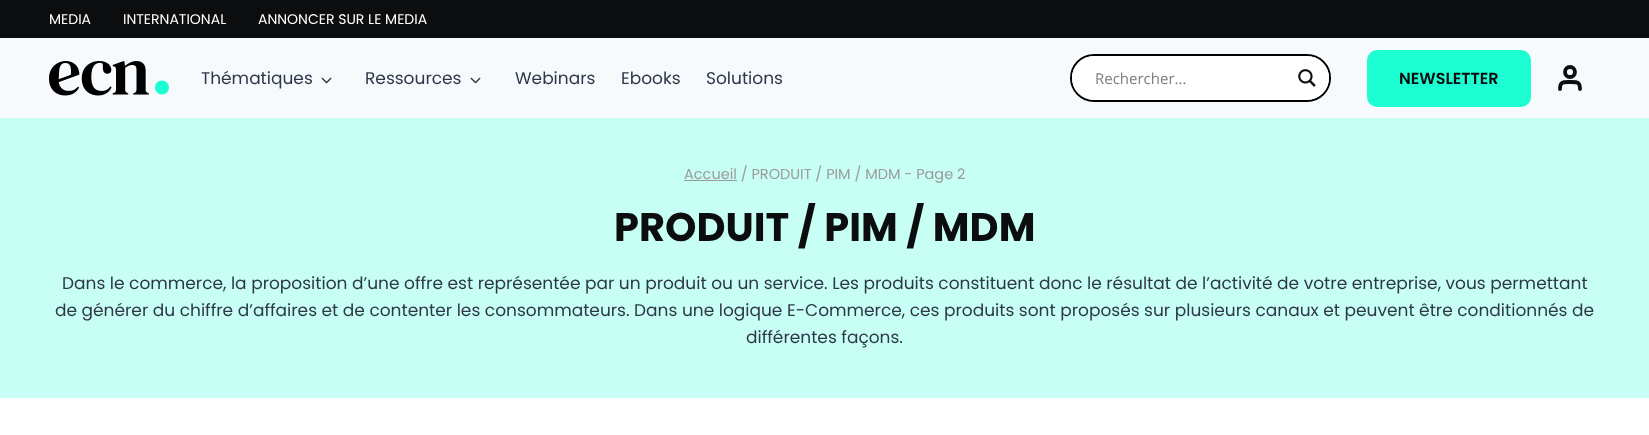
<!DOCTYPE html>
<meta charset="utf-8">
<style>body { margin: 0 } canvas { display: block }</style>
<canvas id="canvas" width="1649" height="435"></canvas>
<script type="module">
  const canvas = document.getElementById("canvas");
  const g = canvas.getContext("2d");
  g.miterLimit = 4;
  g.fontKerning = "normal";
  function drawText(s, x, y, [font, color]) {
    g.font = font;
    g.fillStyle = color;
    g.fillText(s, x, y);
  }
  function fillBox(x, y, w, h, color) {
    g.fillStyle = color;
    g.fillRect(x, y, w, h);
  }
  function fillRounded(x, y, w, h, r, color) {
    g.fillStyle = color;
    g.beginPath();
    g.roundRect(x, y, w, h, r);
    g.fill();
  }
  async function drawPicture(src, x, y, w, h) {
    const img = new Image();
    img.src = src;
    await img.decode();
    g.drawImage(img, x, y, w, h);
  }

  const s1 = ["14px Poppins", "#FFFFFF"];
  const s2 = ["17px Poppins", "#2D3748"];
  const s3 = ["15px Open Sans", "#7D7D7D"];
  const s4 = ["600 16px Poppins", "#0C0D0E"];
  const s5 = ["14.5px Poppins", "#9C9B9B"];
  const s6 = ["bold 40px Poppins", "#0C0D0E"];

  fillBox(0, 0, 1649, 435, "#FFFFFF");
  fillBox(0, 0, 1649, 38, "#0C0D0E");
  drawText("MEDIA", 49, 24, s1);
  drawText("INTERNATIONAL", 123, 24, s1);
  drawText("ANNONCER SUR LE MEDIA", 258, 24, s1);
  fillBox(0, 38, 1649, 80, "#F7FAFC");
  await drawPicture("pic1.png", 49, 61, 120, 35);
  drawText("Thématiques", 201, 84, s2);
  await drawPicture("pic2.png", 321, 77, 11, 7);
  drawText("Ressources", 365, 84, s2);
  await drawPicture("pic2.png", 470, 77, 11, 7);
  drawText("Webinars", 515, 84, s2);
  drawText("Ebooks", 621, 84, s2);
  drawText("Solutions", 706, 84, s2);
  g.beginPath();
  g.roundRect(1071, 55, 259, 46, 23);
  g.strokeStyle = "#000000";
  g.lineWidth = 2;
  g.stroke();
  fillRounded(1072, 56, 257, 44, 22, "#FFFFFF");
  drawText("Rechercher...", 1095, 84, s3);
  await drawPicture("pic3.png", 1298, 69, 18, 18);
  fillRounded(1367, 50, 164, 57, 10, "#1DFFD3");
  drawText("NEWSLETTER", 1399, 84, s4);
  g.beginPath();
  g.moveTo(1580, 89);
  g.bezierCurveTo(1580, 81.5, 1577, 82, 1570, 82);
  g.bezierCurveTo(1563, 82, 1560, 81.5, 1560, 89);
  g.strokeStyle = "#0C0D0E";
  g.lineWidth = 3.8;
  g.lineCap = "round";
  g.lineJoin = "round";
  g.stroke();
  g.beginPath();
  g.arc(1570, 72, 5, 0, Math.PI * 2);
  g.stroke();
  fillBox(0, 118, 1649, 280, "#C7FFF5");
  fillBox(684, 180, 53, 1, "#9C9B9B");
  drawText("Accueil / PRODUIT / PIM / MDM - Page 2", 684, 179, s5);
  drawText("PRODUIT / PIM / MDM", 614, 241, s6);
  drawText("Dans le commerce, la proposition d’une offre est représentée par un produit ou un service. Les produits constituent donc le résultat de l’activité de votre entreprise, vous permettant", 62, 289, s2);
  drawText("de générer du chiffre d’affaires et de contenter les consommateurs. Dans une logique E-Commerce, ces produits sont proposés sur plusieurs canaux et peuvent être conditionnés de", 55, 316, s2);
  drawText("différentes façons.", 746, 343, s2);
</script>
